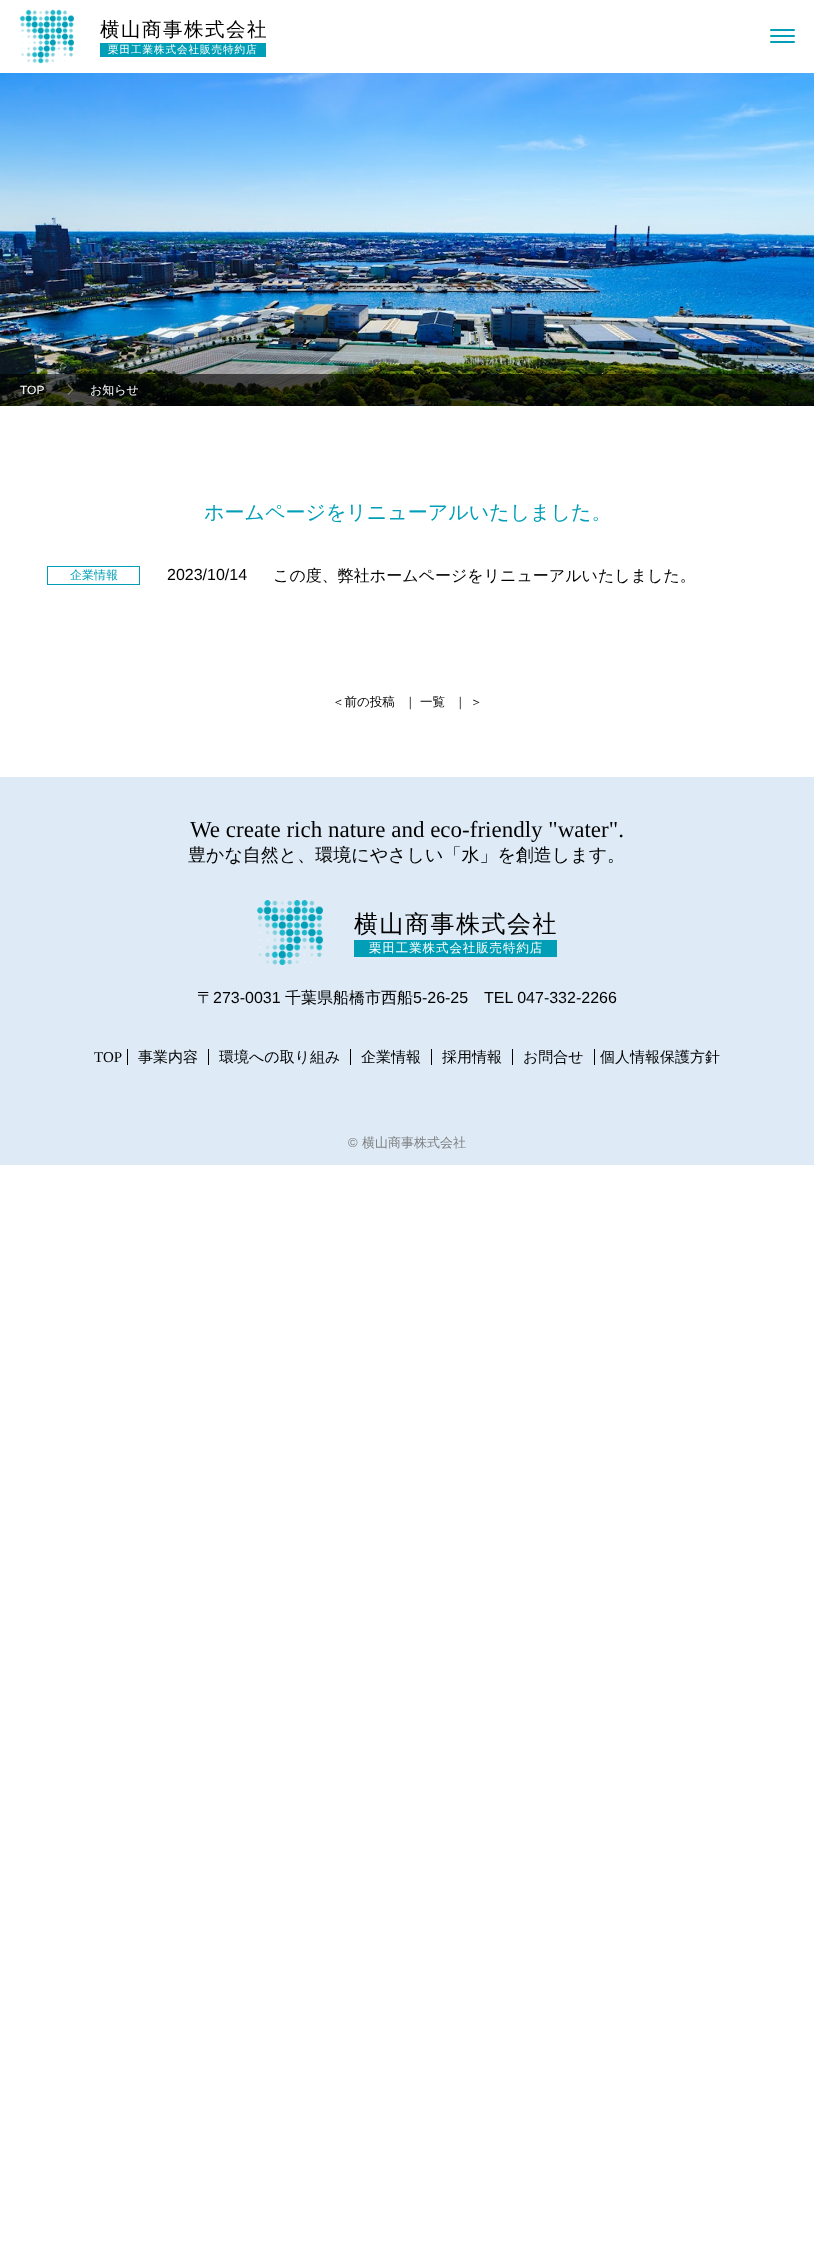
<!DOCTYPE html>
<meta charset="utf-8">
<style>body { margin: 0 } canvas { display: block }</style>
<canvas id="canvas" width="814" height="2249"></canvas>
<script type="module">
  const canvas = document.getElementById("canvas");
  const g = canvas.getContext("2d");
  g.miterLimit = 4;
  g.fontKerning = "normal";
  function drawText(s, x, y, [font, color]) {
    g.font = font;
    g.fillStyle = color;
    g.fillText(s, x, y);
  }
  function fillBox(x, y, w, h, color) {
    g.fillStyle = color;
    g.fillRect(x, y, w, h);
  }
  function fillRounded(x, y, w, h, r, color) {
    g.fillStyle = color;
    g.beginPath();
    g.roundRect(x, y, w, h, r);
    g.fill();
  }
  async function drawPicture(src, x, y, w, h) {
    const img = new Image();
    img.src = src;
    await img.decode();
    g.drawImage(img, x, y, w, h);
  }

  const s1 = ["500 19.5px WenQuanYi Zen Hei", "#000000"];
  const s2 = ["500 10.6px WenQuanYi Zen Hei", "#FFFFFF"];
  const s3 = ["12px Liberation Sans", "#FFFFFF"];
  const s4 = ["500 12px WenQuanYi Zen Hei", "#FFFFFF"];
  const s5 = ["500 20px WenQuanYi Zen Hei", "#009FB7"];
  const s6 = ["500 12px WenQuanYi Zen Hei", "#009FB7"];
  const s7 = ["16px Liberation Sans", "#000000"];
  const s8 = ["500 16px WenQuanYi Zen Hei", "#000000"];
  const s9 = ["500 12.5px WenQuanYi Zen Hei", "#000000"];
  const s10 = ["23px Liberation Serif", "#000000"];
  const s11 = ["500 18px WenQuanYi Zen Hei", "#000000"];
  const s12 = ["500 24px WenQuanYi Zen Hei", "#000000"];
  const s13 = ["500 12.5px WenQuanYi Zen Hei", "#FFFFFF"];
  const s14 = ["15px Liberation Serif", "#000000"];
  const s15 = ["500 15px WenQuanYi Zen Hei", "#000000"];
  const s16 = ["13px Liberation Sans", "#7F7F7F"];
  const s17 = ["500 13px WenQuanYi Zen Hei", "#7F7F7F"];

  fillBox(0, 0, 814, 2249, "#FFFFFF");
  await drawPicture("pic1.png", 19, 9, 55, 55);
  g.letterSpacing = "1.5px";
  drawText("横山商事株式会社", 100, 36, s1);
  fillBox(100, 43, 166, 14, "#009FB7");
  g.letterSpacing = "0.9px";
  drawText("栗田工業株式会社販売特約店", 108, 53, s2);
  fillRounded(770, 29, 25, 2, 1, "#009FB7");
  fillRounded(770, 35, 25, 2, 1, "#009FB7");
  fillRounded(770, 41, 25, 2, 1, "#009FB7");
  await drawPicture("pic2.png", 0, 73, 814, 333);
  fillBox(0, 374, 814, 32, "rgba(0, 0, 0, 0.6)");
  g.letterSpacing = "0px";
  drawText("TOP", 20, 394, s3);
  await drawPicture("pic3.png", 67, 384, 7, 11);
  drawText("お知らせ", 90, 394, s4);
  drawText("ホームページをリニューアルいたしました。", 204, 519, s5);
  g.strokeStyle = "#009FB7";
  g.strokeRect(47.5, 566.5, 92, 18);
  drawText("企業情報", 70, 579, s6);
  drawText("2023/10/14", 167, 580, s7);
  drawText("この度、弊社ホームページをリニューアルいたしました。", 273, 581, s8);
  drawText("＜前の投稿", 332, 706, s9);
  drawText("｜", 404, 706, s9);
  drawText("一覧", 420, 706, s9);
  drawText("｜", 454, 706, s9);
  drawText("＞", 470, 706, s9);
  fillBox(0, 777, 814, 388, "#DEEBF7");
  drawText("We create rich nature and eco-friendly \"water\".", 190, 837, s10);
  drawText("豊かな自然と、環境にやさしい「水」を創造します。", 188, 861, s11);
  await drawPicture("pic4.png", 257, 900, 66, 65);
  g.letterSpacing = "1.5px";
  drawText("横山商事株式会社", 354, 932, s12);
  fillBox(354, 940, 203, 17, "#009FB7");
  g.letterSpacing = "0.9px";
  drawText("栗田工業株式会社販売特約店", 369, 952, s13);
  g.letterSpacing = "0px";
  drawText("〒", 197, 1003, s8);
  drawText("273-0031", 213, 1003, s7);
  drawText("千葉県船橋市西船", 285, 1003, s8);
  drawText("5-26-25", 413, 1003, s7);
  drawText("TEL 047-332-2266", 484, 1003, s7);
  fillBox(127, 1049, 1, 16, "#000000");
  drawText("TOP", 94, 1062, s14);
  fillBox(208, 1049, 1, 16, "#000000");
  drawText("事業内容", 138, 1062, s15);
  fillBox(350, 1049, 1, 16, "#000000");
  drawText("環境への取り組み", 219, 1062, s15);
  fillBox(431, 1049, 1, 16, "#000000");
  drawText("企業情報", 361, 1062, s15);
  fillBox(512, 1049, 1, 16, "#000000");
  drawText("採用情報", 442, 1062, s15);
  fillBox(594, 1049, 1, 16, "#000000");
  drawText("お問合せ", 523, 1062, s15);
  drawText("個人情報保護方針", 600, 1062, s15);
  drawText("©", 348, 1147, s16);
  drawText("横山商事株式会社", 362, 1147, s17);
</script>
